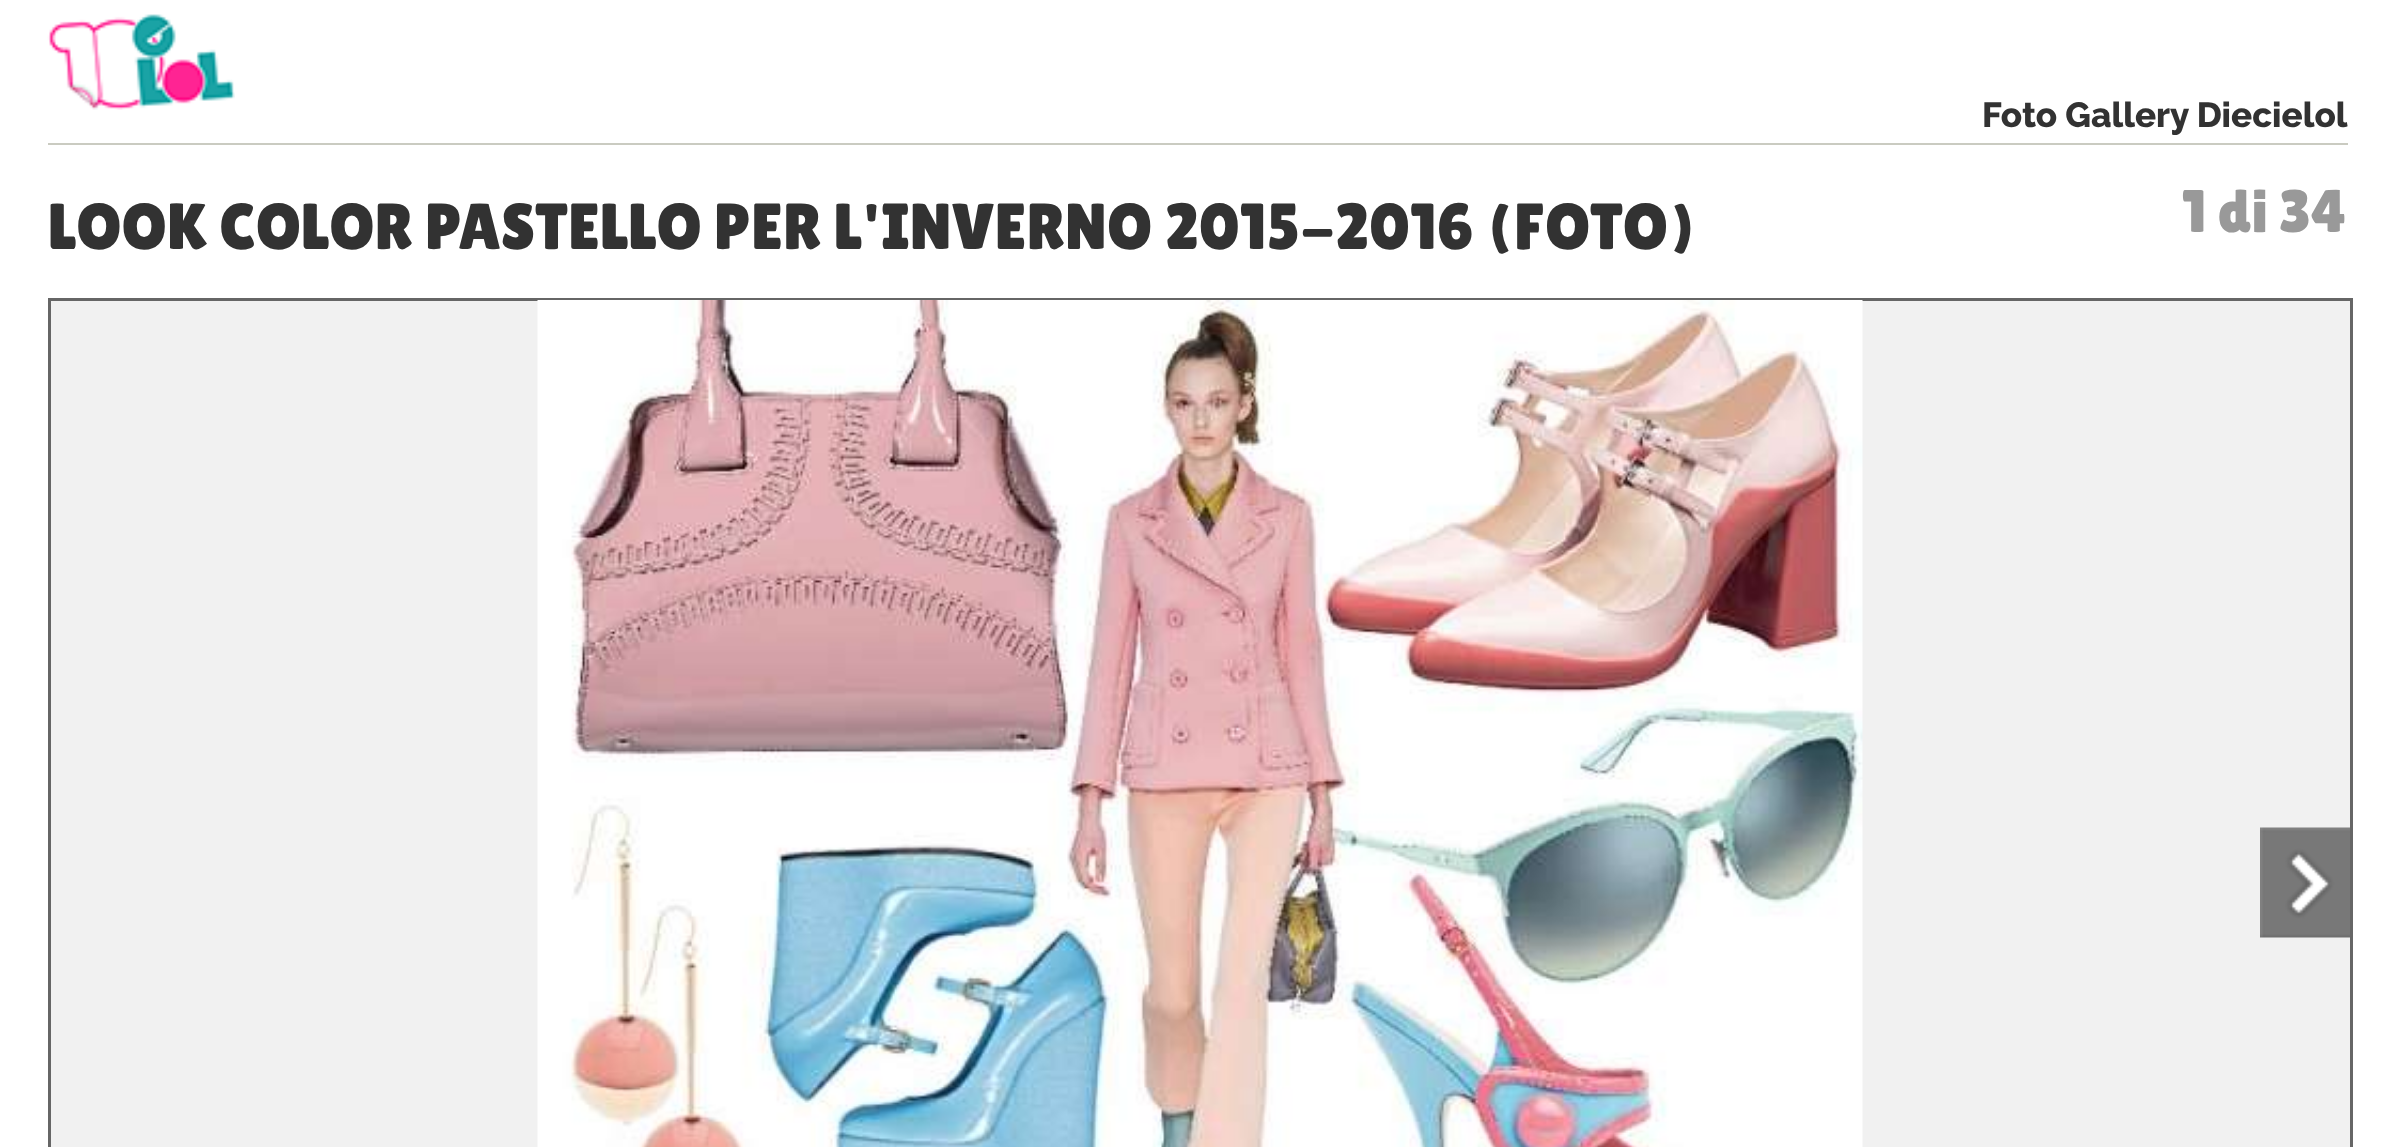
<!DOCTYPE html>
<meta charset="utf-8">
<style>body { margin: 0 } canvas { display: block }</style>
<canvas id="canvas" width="2395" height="1147"></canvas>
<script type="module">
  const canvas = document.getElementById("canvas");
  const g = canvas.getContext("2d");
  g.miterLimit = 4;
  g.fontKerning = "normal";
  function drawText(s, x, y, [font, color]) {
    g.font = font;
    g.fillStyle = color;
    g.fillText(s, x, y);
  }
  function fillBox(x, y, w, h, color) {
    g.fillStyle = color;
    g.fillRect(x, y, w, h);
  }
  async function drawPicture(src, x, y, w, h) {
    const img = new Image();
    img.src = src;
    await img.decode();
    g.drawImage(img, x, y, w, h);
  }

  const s1 = ["800 35px Raleway", "#323232"];
  const s2 = ["65px Lilita One", "#323232"];
  const s3 = ["60px Lilita One", "#999999"];

  fillBox(0, 0, 2395, 1147, "#FFFFFF");
  fillBox(48, 143, 2300, 2, "#CACBC1");
  await drawPicture("pic1.png", 47, 14, 188, 96);
  drawText("Foto Gallery Diecielol", 1982, 127, s1);
  drawText("LOOK COLOR PASTELLO PER L'INVERNO 2015-2016 (FOTO)", 48, 249, s2);
  drawText("1 di 34", 2182, 232, s3);
  g.fillStyle = "#F1F1F1";
  g.beginPath();
  g.rect(49.5, 299.5, 2302, 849);
  g.fill();
  g.strokeStyle = "#666666";
  g.lineWidth = 3;
  g.stroke();
  await drawPicture("pic2.png", 537, 300, 1326, 847);
  await drawPicture("pic3.png", 2260, 827, 90, 111);
</script>
